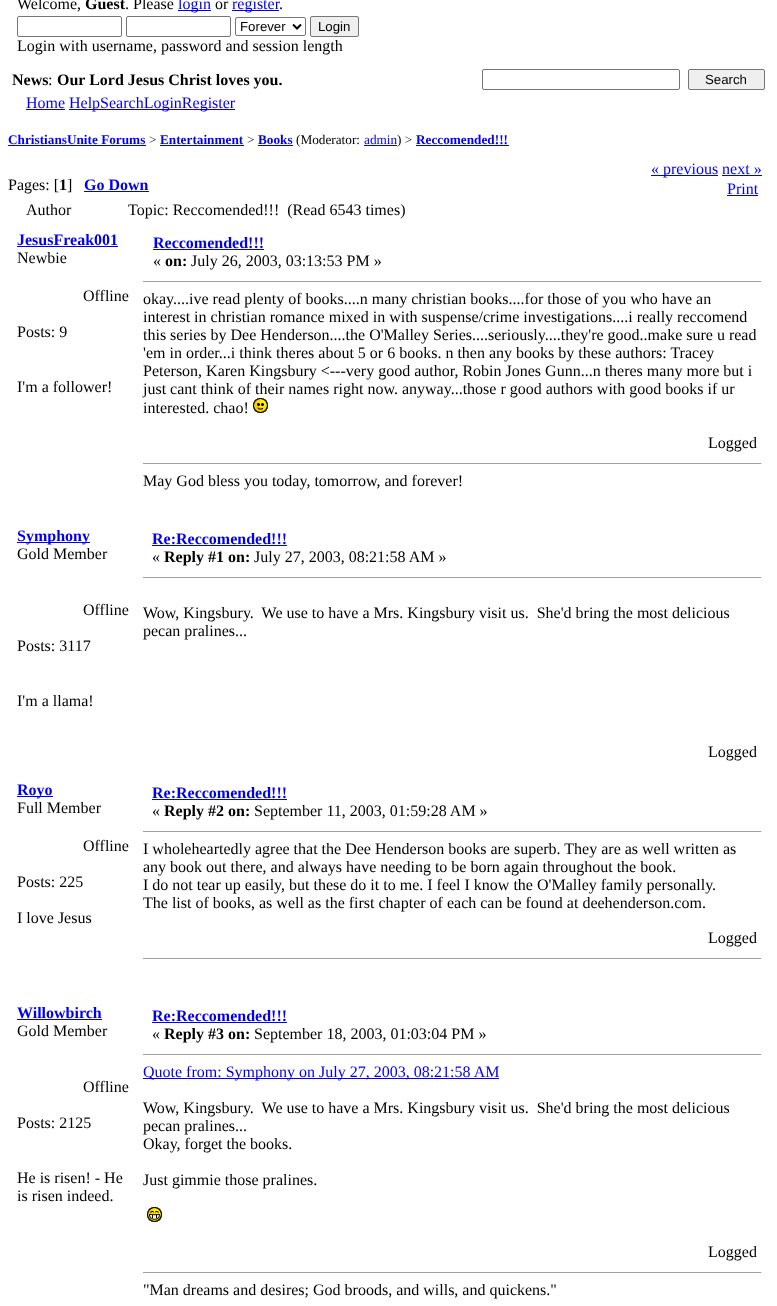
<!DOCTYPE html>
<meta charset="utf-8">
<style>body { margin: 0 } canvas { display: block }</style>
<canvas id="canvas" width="777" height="1306"></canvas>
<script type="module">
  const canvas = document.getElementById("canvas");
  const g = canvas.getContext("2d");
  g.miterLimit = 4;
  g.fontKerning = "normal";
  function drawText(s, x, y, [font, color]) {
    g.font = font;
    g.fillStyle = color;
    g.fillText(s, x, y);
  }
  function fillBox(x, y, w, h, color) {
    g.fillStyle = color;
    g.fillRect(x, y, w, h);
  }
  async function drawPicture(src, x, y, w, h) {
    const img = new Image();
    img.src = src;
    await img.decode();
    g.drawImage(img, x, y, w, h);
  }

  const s1 = ["16px Liberation Serif", "#000000"];
  const s2 = ["bold 16px Liberation Serif", "#000000"];
  const s3 = ["16px Liberation Serif", "#0000EE"];
  const s4 = ["13.25px Liberation Sans", "#000000"];
  const s5 = ["bold 13.25px Liberation Serif", "#0000EE"];
  const s6 = ["13.25px Liberation Serif", "#000000"];
  const s7 = ["13.25px Liberation Serif", "#0000EE"];
  const s8 = ["bold 16px Liberation Serif", "#0000EE"];

  fillBox(0, 0, 777, 1306, "#FFFFFF");
  drawText("Welcome,", 17, 9, s1);
  drawText("Guest", 85, 9, s2);
  drawText(". Please", 125, 9, s1);
  fillBox(178, 10, 33, 1, "#0000EE");
  drawText("login", 178, 9, s3);
  drawText("or", 215, 9, s1);
  fillBox(232, 10, 47, 1, "#0000EE");
  drawText("register", 232, 9, s3);
  drawText(".", 279, 9, s1);
  g.beginPath();
  g.roundRect(17.5, 16.5, 104, 20, 1.5);
  g.strokeStyle = "#767676";
  g.stroke();
  g.beginPath();
  g.roundRect(126.5, 16.5, 104, 20, 1.5);
  g.stroke();
  g.beginPath();
  g.roundRect(235.5, 17.5, 70, 18, 1.5);
  g.stroke();
  g.beginPath();
  g.moveTo(293, 24.5);
  g.lineTo(297, 28.5);
  g.lineTo(301, 24.5);
  g.strokeStyle = "#000000";
  g.lineWidth = 2;
  g.stroke();
  drawText("Forever", 240, 31, s4);
  g.fillStyle = "#EFEFEF";
  g.beginPath();
  g.roundRect(310.5, 16.5, 48, 20, 1.5);
  g.fill();
  g.strokeStyle = "#767676";
  g.lineWidth = 1;
  g.stroke();
  drawText("Login", 318, 31, s4);
  drawText("Login with username, password and session length", 17, 51, s1);
  drawText("News", 12, 85, s2);
  drawText(":", 48, 85, s1);
  drawText("Our Lord Jesus Christ loves you.", 57, 85, s2);
  g.beginPath();
  g.roundRect(482.5, 69.5, 197, 20, 1.5);
  g.stroke();
  g.fillStyle = "#EFEFEF";
  g.beginPath();
  g.roundRect(688.5, 69.5, 76, 20, 1.5);
  g.fill();
  g.stroke();
  drawText("Search", 705, 84, s4);
  drawText("Home", 26, 108, s3);
  fillBox(26, 109, 39, 1, "#0000EE");
  fillBox(69, 109, 166, 1, "#0000EE");
  drawText("HelpSearchLoginRegister", 69, 108, s3);
  drawText("ChristiansUnite Forums", 8, 144, s5);
  fillBox(8, 145, 138, 1, "#0000EE");
  drawText(">", 149, 144, s6);
  drawText("Entertainment", 160, 144, s5);
  fillBox(160, 145, 84, 1, "#0000EE");
  drawText(">", 247, 144, s6);
  drawText("Books", 258, 144, s5);
  fillBox(258, 145, 35, 1, "#0000EE");
  drawText("(Moderator:", 296, 144, s6);
  drawText("admin", 364, 144, s7);
  fillBox(364, 145, 33, 1, "#0000EE");
  drawText(") >", 397, 144, s6);
  drawText("Reccomended!!!", 416, 144, s5);
  fillBox(416, 145, 93, 1, "#0000EE");
  drawText("Pages: [", 8, 190, s1);
  drawText("1", 59, 190, s2);
  drawText("]", 67, 190, s1);
  drawText("Go Down", 84, 190, s8);
  fillBox(84, 191, 65, 1, "#0000EE");
  fillBox(651, 175, 67, 1, "#0000EE");
  drawText("« previous next »", 651, 174, s3);
  fillBox(722, 175, 40, 1, "#0000EE");
  drawText("Print", 727, 194, s3);
  fillBox(727, 195, 31, 1, "#0000EE");
  drawText("Author", 26, 215, s1);
  drawText("Topic: Reccomended!!!  (Read 6543 times)", 128, 215, s1);
  drawText("JesusFreak001", 17, 245, s8);
  fillBox(17, 246, 101, 1, "#0000EE");
  drawText("Newbie", 17, 263, s1);
  drawText("Offline", 83, 301, s1);
  drawText("Posts: 9", 17, 337, s1);
  drawText("I'm a follower!", 17, 392, s1);
  drawText("Reccomended!!!", 153, 248, s8);
  fillBox(153, 249, 111, 1, "#0000EE");
  drawText("«", 153, 266, s1);
  drawText("on:", 165, 266, s2);
  drawText("July 26, 2003, 03:13:53 PM »", 191, 266, s1);
  fillBox(143, 281, 619, 1, "#9F9F9F");
  fillBox(761, 281, 1, 1, "#EEEEEE");
  drawText("okay....ive read plenty of books....n many christian books....for those of you who have an", 143, 304, s1);
  drawText("interest in christian romance mixed in with suspense/crime investigations....i really reccomend", 143, 322, s1);
  drawText("this series by Dee Henderson....the O'Malley Series....seriously....they're good..make sure u read", 143, 340, s1);
  drawText("'em in order...i think theres about 5 or 6 books. n then any books by these authors: Tracey", 143, 358, s1);
  drawText("Peterson, Karen Kingsbury <---very good author, Robin Jones Gunn...n theres many more but i", 143, 376, s1);
  drawText("just cant think of their names right now. anyway...those r good authors with good books if ur", 143, 394, s1);
  drawText("interested. chao!", 143, 413, s1);
  await drawPicture("pic1.png", 253, 398, 15, 15);
  drawText("Logged", 708, 448, s1);
  fillBox(143, 463, 619, 1, "#9F9F9F");
  fillBox(761, 463, 1, 1, "#EEEEEE");
  drawText("May God bless you today, tomorrow, and forever!", 143, 486, s1);
  fillBox(17, 542, 73, 1, "#0000EE");
  drawText("Symphony", 17, 541, s8);
  drawText("Gold Member", 17, 559, s1);
  drawText("Offline", 83, 615, s1);
  drawText("Posts: 3117", 17, 651, s1);
  drawText("I'm a llama!", 17, 706, s1);
  drawText("Re:Reccomended!!!", 152, 544, s8);
  fillBox(152, 545, 135, 1, "#0000EE");
  drawText("«", 152, 562, s1);
  drawText("Reply #1 on:", 164, 562, s2);
  drawText("July 27, 2003, 08:21:58 AM »", 254, 562, s1);
  fillBox(143, 577, 619, 1, "#9F9F9F");
  fillBox(761, 577, 1, 1, "#EEEEEE");
  drawText("Wow, Kingsbury.  We use to have a Mrs. Kingsbury visit us.  She'd bring the most delicious", 143, 618, s1);
  drawText("pecan pralines...", 143, 636, s1);
  drawText("Logged", 708, 757, s1);
  fillBox(17, 796, 36, 1, "#0000EE");
  drawText("Royo", 17, 795, s8);
  drawText("Full Member", 17, 813, s1);
  drawText("Offline", 83, 851, s1);
  drawText("Posts: 225", 17, 887, s1);
  drawText("I love Jesus", 17, 923, s1);
  drawText("Re:Reccomended!!!", 152, 798, s8);
  fillBox(152, 799, 135, 1, "#0000EE");
  drawText("«", 152, 816, s1);
  drawText("Reply #2 on:", 164, 816, s2);
  drawText("September 11, 2003, 01:59:28 AM »", 254, 816, s1);
  fillBox(143, 831, 619, 1, "#9F9F9F");
  fillBox(761, 831, 1, 1, "#EEEEEE");
  drawText("I wholeheartedly agree that the Dee Henderson books are superb. They are as well written as", 143, 854, s1);
  drawText("any book out there, and always have needing to be born again throughout the book.", 143, 872, s1);
  drawText("I do not tear up easily, but these do it to me. I feel I know the O'Malley family personally.", 143, 890, s1);
  drawText("The list of books, as well as the first chapter of each can be found at deehenderson.com.", 143, 908, s1);
  drawText("Logged", 708, 943, s1);
  fillBox(143, 958, 619, 1, "#9F9F9F");
  fillBox(761, 958, 1, 1, "#EEEEEE");
  drawText("Willowbirch", 17, 1018, s8);
  fillBox(17, 1019, 85, 1, "#0000EE");
  drawText("Gold Member", 17, 1036, s1);
  drawText("Offline", 83, 1092, s1);
  drawText("Posts: 2125", 17, 1128, s1);
  drawText("He is risen! - He", 17, 1183, s1);
  drawText("is risen indeed.", 17, 1201, s1);
  drawText("Re:Reccomended!!!", 152, 1021, s8);
  fillBox(152, 1022, 135, 1, "#0000EE");
  drawText("«", 152, 1039, s1);
  drawText("Reply #3 on:", 164, 1039, s2);
  drawText("September 18, 2003, 01:03:04 PM »", 254, 1039, s1);
  fillBox(143, 1054, 619, 1, "#9F9F9F");
  fillBox(761, 1054, 1, 1, "#EEEEEE");
  fillBox(143, 1078, 356, 1, "#0000EE");
  drawText("Quote from: Symphony on July 27, 2003, 08:21:58 AM", 143, 1077, s3);
  drawText("Wow, Kingsbury.  We use to have a Mrs. Kingsbury visit us.  She'd bring the most delicious", 143, 1113, s1);
  drawText("pecan pralines...", 143, 1131, s1);
  drawText("Okay, forget the books.", 143, 1149, s1);
  drawText("Just gimmie those pralines.", 143, 1185, s1);
  await drawPicture("pic2.png", 147, 1207, 15, 15);
  drawText("Logged", 708, 1257, s1);
  fillBox(143, 1272, 619, 1, "#9F9F9F");
  fillBox(761, 1272, 1, 1, "#EEEEEE");
  drawText("\"Man dreams and desires; God broods, and wills, and quickens.\"", 143, 1295, s1);
</script>
